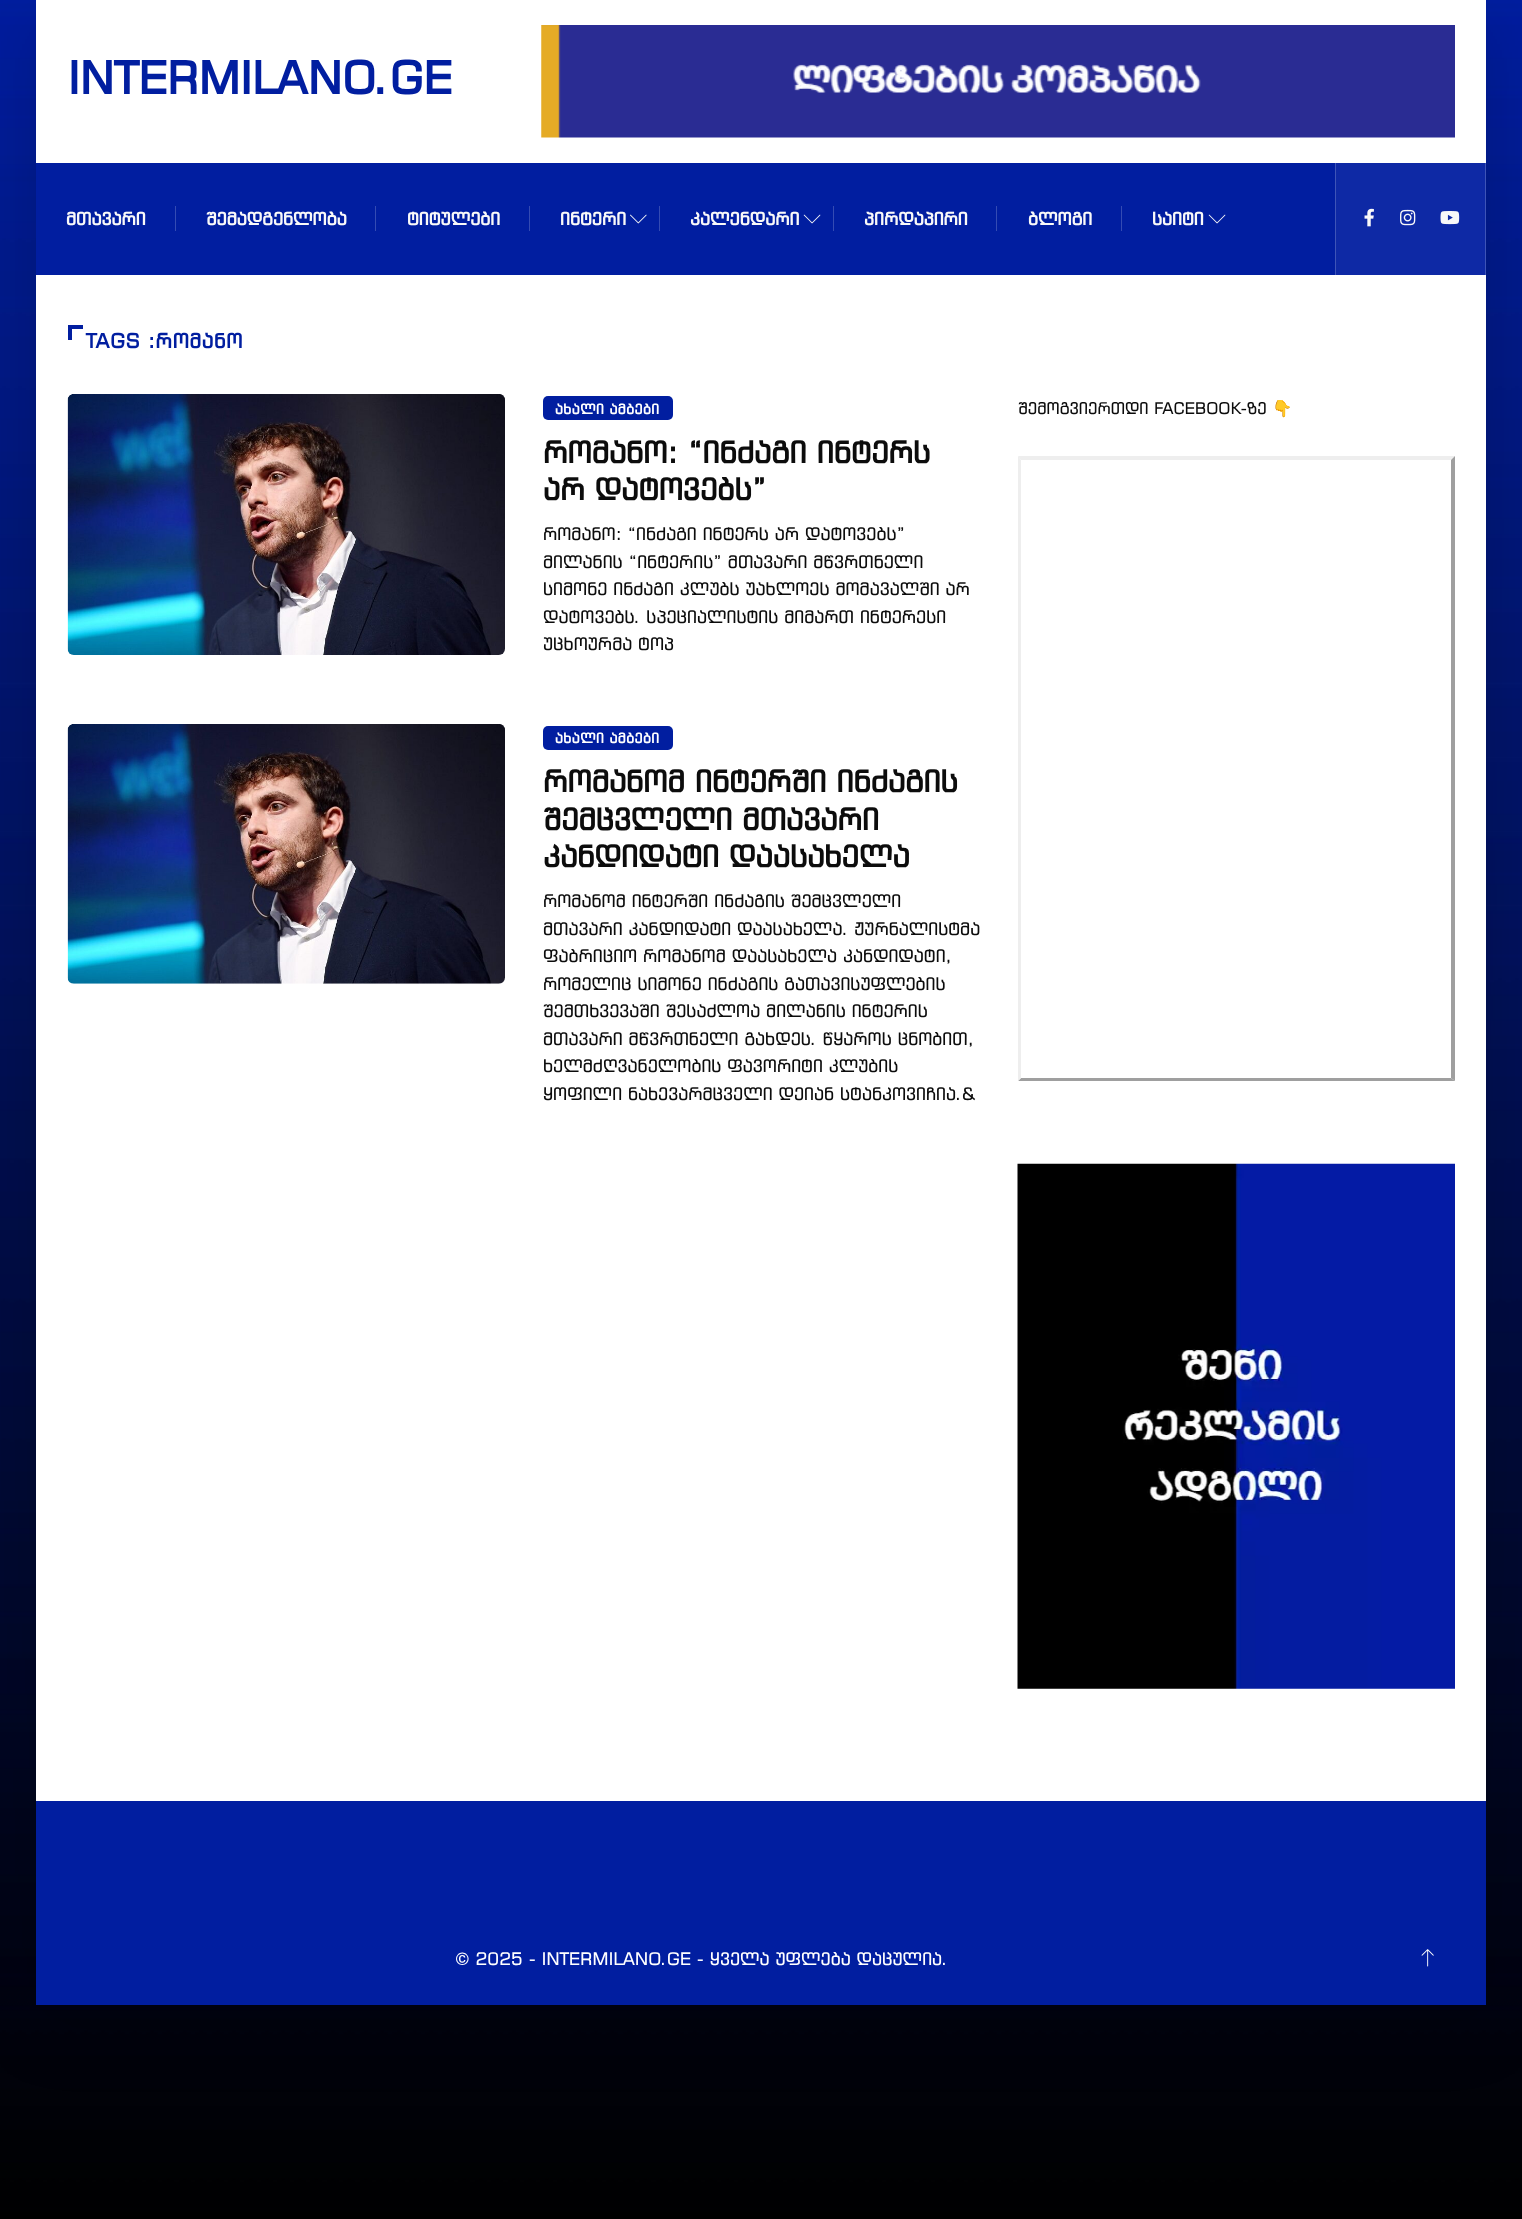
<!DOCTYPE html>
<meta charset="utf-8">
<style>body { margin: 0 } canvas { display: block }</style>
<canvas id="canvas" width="1522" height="2219"></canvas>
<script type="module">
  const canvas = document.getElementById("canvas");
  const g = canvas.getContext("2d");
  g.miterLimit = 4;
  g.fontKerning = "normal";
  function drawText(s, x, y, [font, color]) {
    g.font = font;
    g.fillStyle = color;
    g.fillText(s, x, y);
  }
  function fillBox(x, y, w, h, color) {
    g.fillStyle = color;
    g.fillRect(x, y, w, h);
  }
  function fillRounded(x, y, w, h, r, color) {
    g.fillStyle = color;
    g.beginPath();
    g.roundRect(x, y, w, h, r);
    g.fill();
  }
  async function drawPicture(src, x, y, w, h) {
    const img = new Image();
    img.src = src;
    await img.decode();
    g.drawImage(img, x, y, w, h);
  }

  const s1 = ["bold 45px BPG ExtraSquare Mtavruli", "#011EA0"];
  const s2 = ["bold 17.5px BPG ExtraSquare Mtavruli", "#F9F9F9"];
  const s3 = ["bold 20px BPG ExtraSquare Mtavruli", "#011EA0"];
  const s4 = ["bold 13.75px BPG ExtraSquare Mtavruli", "#FFFFFF"];
  const s5 = ["bold 30px BPG ExtraSquare Mtavruli", "#0C0C0C"];
  const s6 = ["17.5px BPG ExtraSquare Mtavruli", "#0C0C0C"];
  const s7 = ["16.25px BPG ExtraSquare Mtavruli", "#0C0C0C"];
  const s8 = ["16.25px Noto Color Emoji", "#0C0C0C"];
  const s9 = ["17.5px BPG ExtraSquare Mtavruli", "#FFFFFF"];

  fillBox(0, 0, 1522, 2219, "#FFFFFF");
  await drawPicture("pic1.png", 0, 0, 1522, 2219);
  g.fillStyle = "rgba(0, 0, 0, 0.15)";
  g.filter = "blur(31px)";
  g.beginPath();
  g.rect(36, 25, 1450, 2005);
  g.fill();
  g.filter = "none";
  fillBox(36, 0, 1450, 1801, "#FFFFFF");
  drawText("INTERMILANO.GE", 68, 94, s1);
  await drawPicture("pic2.png", 541, 25, 914, 113);
  fillBox(36, 163, 1299, 112, "#011EA0");
  drawText("მთავარი", 66, 225, s2);
  fillBox(175, 206, 1, 25, "#344BB3");
  drawText("შემადგენლობა", 206, 225, s2);
  fillBox(375, 206, 1, 25, "#344BB3");
  drawText("ტიტულები", 407, 225, s2);
  fillBox(529, 206, 1, 25, "#344BB3");
  drawText("ინტერი", 560, 225, s2);
  await drawPicture("pic3.png", 630, 214, 17, 10);
  fillBox(659, 206, 1, 25, "#344BB3");
  drawText("კალენდარი", 690, 225, s2);
  await drawPicture("pic4.png", 803, 214, 18, 10);
  fillBox(833, 206, 1, 25, "#344BB3");
  drawText("პირდაპირი", 864, 225, s2);
  fillBox(996, 206, 1, 25, "#344BB3");
  drawText("ბლოგი", 1028, 225, s2);
  fillBox(1121, 206, 1, 25, "#344BB3");
  drawText("საიტი", 1152, 225, s2);
  await drawPicture("pic4.png", 1208, 214, 18, 10);
  fillBox(1336, 163, 149, 112, "#0E29A5");
  fillBox(1485, 163, 1, 112, "#3E54B7");
  fillBox(1335, 163, 1, 112, "#3E54B7");
  await drawPicture("pic5.png", 1364, 208, 10, 19);
  await drawPicture("pic6.png", 1400, 209, 16, 17);
  await drawPicture("pic7.png", 1440, 211, 20, 14);
  fillBox(68, 325, 4, 15, "#011EA0");
  fillBox(68, 325, 15, 4, "#011EA0");
  g.letterSpacing = "0.75px";
  drawText("TAGS :რომანო", 86, 348, s3);
  await drawPicture("pic8.png", 67, 394, 438, 261);
  fillRounded(543, 396, 130, 24, 5, "#011EA0");
  g.letterSpacing = "0.5px";
  drawText("ახალი ამბები", 555, 414, s4);
  g.letterSpacing = "0px";
  drawText("რომანო: “ინძაგი ინტერს", 543, 463, s5);
  drawText("არ დატოვებს”", 543, 500, s5);
  drawText("რომანო: “ინძაგი ინტერს არ დატოვებს”", 543, 540, s6);
  drawText("მილანის “ინტერის” მთავარი მწვრთნელი", 543, 568, s6);
  drawText("სიმონე ინძაგი კლუბს უახლოეს მომავალში არ", 543, 595, s6);
  drawText("დატოვებს. სპეციალისტის მიმართ ინტერესი", 543, 623, s6);
  drawText("უცხოურმა ტოპ", 543, 650, s6);
  await drawPicture("pic9.png", 67, 724, 438, 260);
  fillRounded(543, 726, 130, 24, 5, "#011EA0");
  g.letterSpacing = "0.5px";
  drawText("ახალი ამბები", 555, 743, s4);
  g.letterSpacing = "0px";
  drawText("რომანომ ინტერში ინძაგის", 543, 792, s5);
  drawText("შემცვლელი მთავარი", 543, 830, s5);
  drawText("კანდიდატი დაასახელა", 543, 867, s5);
  drawText("რომანომ ინტერში ინძაგის შემცვლელი", 543, 907, s6);
  drawText("მთავარი კანდიდატი დაასახელა. ჟურნალისტმა", 543, 935, s6);
  drawText("ფაბრიციო რომანომ დაასახელა კანდიდატი,", 543, 962, s6);
  drawText("რომელიც სიმონე ინძაგის გათავისუფლების", 543, 990, s6);
  drawText("შემთხვევაში შესაძლოა მილანის ინტერის", 543, 1017, s6);
  drawText("მთავარი მწვრთნელი გახდეს. წყაროს ცნობით,", 543, 1045, s6);
  drawText("ხელმძღვანელობის ფავორიტი კლუბის", 543, 1072, s6);
  drawText("ყოფილი ნახევარმცველი დეიან სტანკოვიჩია.&", 543, 1100, s6);
  drawText("შემოგვიერთდი FACEBOOK-ზე", 1018, 414, s7);
  drawText("👇", 1272, 414, s8);
  g.fillStyle = "#EEEEEE";
  g.beginPath();
  g.moveTo(1018, 456);
  g.lineTo(1455, 456);
  g.lineTo(1451, 460);
  g.lineTo(1021, 460);
  g.closePath();
  g.fill();
  g.fillStyle = "#9F9F9F";
  g.beginPath();
  g.moveTo(1455, 456);
  g.lineTo(1455, 1081);
  g.lineTo(1451, 1078);
  g.lineTo(1451, 460);
  g.closePath();
  g.fill();
  g.beginPath();
  g.moveTo(1455, 1081);
  g.lineTo(1018, 1081);
  g.lineTo(1021, 1078);
  g.lineTo(1451, 1078);
  g.closePath();
  g.fill();
  g.fillStyle = "#EEEEEE";
  g.beginPath();
  g.moveTo(1018, 1081);
  g.lineTo(1018, 456);
  g.lineTo(1021, 460);
  g.lineTo(1021, 1078);
  g.closePath();
  g.fill();
  await drawPicture("pic10.png", 1017, 1163, 438, 526);
  fillBox(36, 1801, 1450, 204, "#011EA0");
  drawText("© 2025 - INTERMILANO.GE - ყველა უფლება დაცულია.", 455, 1965, s9);
  await drawPicture("pic11.png", 1421, 1949, 13, 18);
</script>
